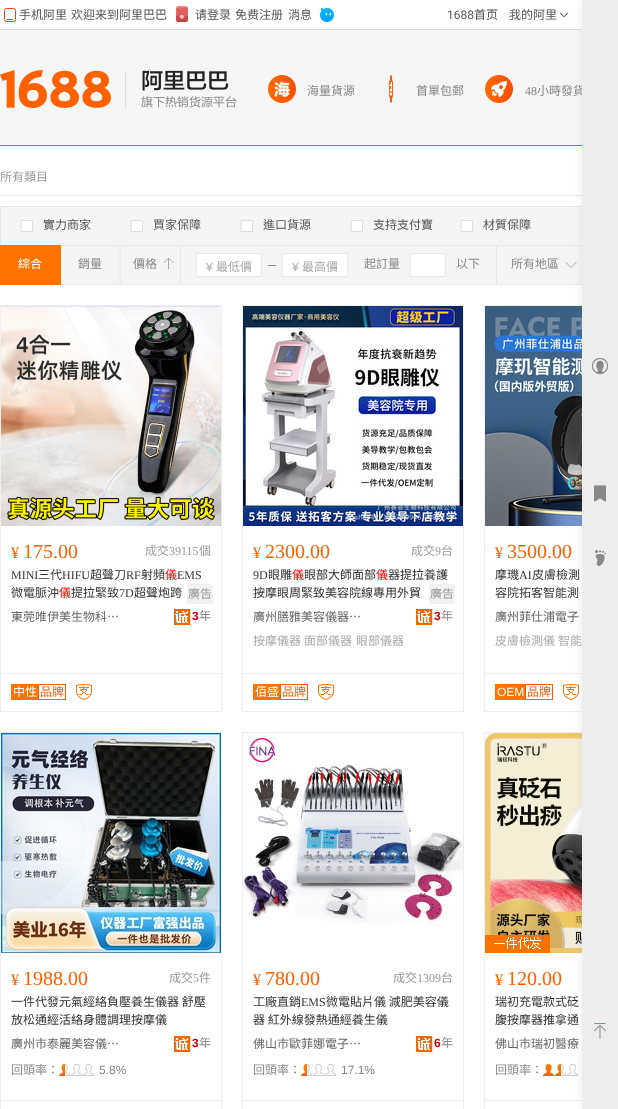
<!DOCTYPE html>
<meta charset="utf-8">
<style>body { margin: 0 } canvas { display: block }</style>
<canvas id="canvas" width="618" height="1109"></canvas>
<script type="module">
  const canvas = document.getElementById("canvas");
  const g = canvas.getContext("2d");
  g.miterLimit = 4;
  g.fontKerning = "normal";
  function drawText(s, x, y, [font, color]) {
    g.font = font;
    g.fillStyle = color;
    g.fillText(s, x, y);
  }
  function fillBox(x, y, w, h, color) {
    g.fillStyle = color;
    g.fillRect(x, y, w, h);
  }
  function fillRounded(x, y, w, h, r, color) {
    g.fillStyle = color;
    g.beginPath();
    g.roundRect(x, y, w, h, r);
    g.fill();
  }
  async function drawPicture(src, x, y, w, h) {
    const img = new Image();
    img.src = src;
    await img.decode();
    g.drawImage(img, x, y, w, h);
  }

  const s1 = ["12px Noto Sans CJK TC", "#555555"];
  const s2 = ["12px Roboto", "#555555"];
  const s3 = ["12px Noto Sans CJK TC", "#888888"];
  const s4 = ["12px Liberation Serif", "#888888"];
  const s5 = ["12px Noto Sans CJK TC", "#999999"];
  const s6 = ["12px Noto Sans CJK TC", "#FFFFFF"];
  const s7 = ["12px Liberation Sans", "#AAAAAA"];
  const s8 = ["12px Noto Sans CJK TC", "#AAAAAA"];
  const s9 = ["16px Liberation Serif", "#FF6000"];
  const s10 = ["20px Liberation Serif", "#FF6000"];
  const s11 = ["12px Liberation Serif", "#999999"];
  const s12 = ["12px Liberation Serif", "#333333"];
  const s13 = ["12px Noto Sans CJK TC", "#333333"];
  const s14 = ["12px Noto Sans CJK TC", "#FF0000"];
  const s15 = ["12px Noto Sans CJK TC", "#666666"];
  const s16 = ["bold 12px Liberation Sans", "#CC0000"];
  const s17 = ["12px Noto Sans CJK TC", "#FF5A00"];
  const s18 = ["12px Liberation Sans", "#FFFFFF"];
  const s19 = ["12px Liberation Sans", "#888888"];

  fillBox(0, 0, 618, 1109, "#FFFFFF");
  fillBox(0, 29, 582, 1, "#DDDDDD");
  g.beginPath();
  g.roundRect(4.5, 8.5, 11, 13, 2);
  g.strokeStyle = "#FF4000";
  g.stroke();
  drawText("手机阿里", 19, 19, s1);
  g.beginPath();
  g.moveTo(7.5, 19.5);
  g.lineTo(12.5, 19.5);
  g.lineCap = "round";
  g.lineJoin = "round";
  g.stroke();
  drawText("欢迎来到阿里巴巴", 71, 19, s1);
  await drawPicture("pic1.png", 176, 6, 12, 16);
  drawText("请登录", 195, 19, s1);
  drawText("免费注册", 235, 19, s1);
  drawText("消息", 288, 19, s1);
  await drawPicture("pic2.png", 320, 8, 14, 14);
  drawText("1688", 447, 19, s2);
  drawText("首页", 474, 19, s1);
  drawText("我的阿里", 509, 19, s1);
  await drawPicture("pic3.png", 560, 12, 8, 6);
  fillBox(0, 30, 582, 115, "#F6F6F6");
  fillBox(0, 145, 582, 1, "#FF4F00");
  await drawPicture("pic4.png", 0, 70, 111, 38);
  fillBox(125, 72, 1, 36, "#DFDFDF");
  await drawPicture("pic5.png", 141, 70, 96, 38);
  await drawPicture("pic6.png", 268, 75, 28, 28);
  drawText("海量貨源", 307, 95, s3);
  await drawPicture("pic7.png", 389, 75, 4, 28);
  drawText("首單包郵", 416, 95, s3);
  await drawPicture("pic8.png", 485, 75, 28, 28);
  drawText("48", 525, 95, s4);
  drawText("小時發貨", 537, 95, s3);
  fillBox(0, 195, 582, 1, "#E8E8E8");
  fillBox(1, 207, 581, 38, "#F5F5F5");
  fillBox(0, 206, 582, 1, "#E8E8E8");
  fillBox(497, 246, 85, 38, "#F5F5F5");
  g.strokeStyle = "#E8E8E8";
  g.lineJoin = "miter";
  g.strokeRect(496.5, 245.5, 90, 39);
  g.fillStyle = "#AAAAAA";
  g.beginPath();
  g.moveTo(565, 262);
  g.lineTo(577, 262);
  g.lineTo(571, 268);
  g.closePath();
  g.fill();
  g.save();
  g.beginPath();
  g.rect(565, 262, 12, 6);
  g.clip();
  g.fillStyle = "#F5F5F5";
  g.beginPath();
  g.moveTo(565, 261);
  g.lineTo(577, 261);
  g.lineTo(571, 267);
  g.closePath();
  g.fill();
  g.restore();
  g.strokeStyle = "#EFEFEF";
  g.strokeRect(484.5, 305.5, 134, 406);
  await drawPicture("pic17.png", 485, 306, 97, 220);
  fillBox(485, 673, 97, 1, "#EFEFEF");
  await drawPicture("pic15.png", 563, 684, 16, 16);
  g.strokeRect(484.5, 732.5, 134, 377);
  await drawPicture("pic22.png", 485, 733, 97, 220);
  await drawPicture("pic24.png", 561, 1064, 17, 12);
  fillBox(485, 1100, 97, 1, "#EFEFEF");
  g.fillStyle = "rgba(153, 153, 153, 0.2)";
  g.filter = "blur(5px)";
  g.beginPath();
  g.rect(582, 0, 36, 1109);
  g.fill();
  g.filter = "none";
  fillBox(582, 0, 36, 1109, "#EDEDED");
  await drawPicture("pic9.png", 592, 358, 16, 16);
  await drawPicture("pic10.png", 594, 485, 12, 17);
  await drawPicture("pic11.png", 595, 550, 11, 16);
  await drawPicture("pic12.png", 594, 1023, 12, 16);
  drawText("所有類目", 0, 181, s5);
  fillBox(0, 206, 1, 39, "#E8E8E8");
  g.fillStyle = "#FFFFFF";
  g.beginPath();
  g.rect(21.5, 220.5, 11, 11);
  g.fill();
  g.strokeStyle = "#DDDDDD";
  g.stroke();
  drawText("實力商家", 43, 229, s1);
  g.fillStyle = "#FFFFFF";
  g.beginPath();
  g.rect(131.5, 220.5, 11, 11);
  g.fill();
  g.stroke();
  drawText("買家保障", 153, 229, s1);
  g.fillStyle = "#FFFFFF";
  g.beginPath();
  g.rect(241.5, 220.5, 11, 11);
  g.fill();
  g.stroke();
  drawText("進口貨源", 263, 229, s1);
  g.fillStyle = "#FFFFFF";
  g.beginPath();
  g.rect(351.5, 220.5, 11, 11);
  g.fill();
  g.stroke();
  drawText("支持支付寶", 373, 229, s1);
  g.fillStyle = "#FFFFFF";
  g.beginPath();
  g.rect(461.5, 220.5, 11, 11);
  g.fill();
  g.stroke();
  drawText("材質保障", 483, 229, s1);
  fillBox(181, 246, 315, 38, "#F5F5F5");
  fillBox(181, 245, 315, 1, "#E8E8E8");
  fillBox(181, 284, 315, 1, "#E8E8E8");
  g.fillStyle = "#F5F5F5";
  g.beginPath();
  g.rect(60.5, 245.5, 60, 39);
  g.fill();
  g.strokeStyle = "#E8E8E8";
  g.stroke();
  fillBox(0, 245, 61, 40, "#FF7300");
  drawText("綜合", 18, 268, s6);
  drawText("銷量", 78, 268, s3);
  g.fillStyle = "#F5F5F5";
  g.beginPath();
  g.rect(120.5, 245.5, 60, 39);
  g.fill();
  g.stroke();
  drawText("價格", 133, 268, s3);
  g.fillStyle = "#AAAAAA";
  g.beginPath();
  g.moveTo(174, 263);
  g.lineTo(163, 263);
  g.lineTo(168, 258);
  g.lineTo(169, 258);
  g.closePath();
  g.fill();
  g.fillStyle = "#F5F5F5";
  g.beginPath();
  g.moveTo(174, 264);
  g.lineTo(163, 264);
  g.lineTo(168, 259);
  g.lineTo(169, 259);
  g.closePath();
  g.fill();
  fillBox(168, 258, 1, 11, "#AAAAAA");
  g.fillStyle = "#FFFFFF";
  g.beginPath();
  g.rect(196.5, 253.5, 65, 23);
  g.fill();
  g.stroke();
  drawText("¥", 206, 271, s7);
  drawText("最低價", 216, 271, s8);
  fillBox(268, 265, 8, 1, "#888888");
  g.fillStyle = "#FFFFFF";
  g.beginPath();
  g.rect(282.5, 253.5, 65, 23);
  g.fill();
  g.stroke();
  drawText("¥", 292, 271, s7);
  drawText("最高價", 302, 271, s8);
  drawText("起訂量", 364, 268, s3);
  g.fillStyle = "#FFFFFF";
  g.beginPath();
  g.rect(410.5, 253.5, 35, 23);
  g.fill();
  g.stroke();
  drawText("以下", 456, 268, s3);
  drawText("所有地區", 511, 268, s3);
  g.strokeStyle = "#EFEFEF";
  g.strokeRect(0.5, 305.5, 221, 406);
  await drawPicture("pic13.png", 1, 306, 220, 220);
  drawText("¥", 11, 558, s9);
  drawText("175.00", 23, 558, s10);
  drawText("成交", 145, 555, s5);
  drawText("39115", 169, 555, s11);
  drawText("個", 199, 555, s5);
  drawText("MINI", 11, 579, s12);
  drawText("三代", 38, 579, s13);
  drawText("HIFU", 62, 579, s12);
  drawText("超聲刀", 90, 579, s13);
  drawText("RF", 126, 579, s12);
  drawText("射頻", 141, 579, s13);
  drawText("儀", 165, 579, s14);
  drawText("EMS", 177, 579, s12);
  drawText("微電脈沖", 11, 597, s13);
  drawText("儀", 59, 597, s14);
  drawText("提拉緊致", 71, 597, s13);
  drawText("7D", 119, 597, s12);
  drawText("超聲炮跨", 134, 597, s13);
  fillRounded(187, 584, 26, 20, 3, "#F1F1F1");
  drawText("廣告", 188, 598, s5);
  drawText("東莞唯伊美生物科…", 11, 621, s15);
  await drawPicture("pic14.png", 174, 609, 17, 16);
  drawText("3", 192, 620, s16);
  drawText("年", 199, 620, s3);
  fillBox(1, 673, 220, 1, "#EFEFEF");
  fillBox(11, 684, 27, 16, "#FF7300");
  drawText("中性", 13, 696, s6);
  g.strokeStyle = "#FF5A00";
  g.strokeRect(38.5, 684.5, 27, 15);
  drawText("品牌", 40, 696, s17);
  await drawPicture("pic15.png", 76, 684, 16, 16);
  g.strokeStyle = "#EFEFEF";
  g.strokeRect(242.5, 305.5, 221, 406);
  await drawPicture("pic16.png", 243, 306, 220, 220);
  drawText("¥", 253, 558, s9);
  drawText("2300.00", 265, 558, s10);
  drawText("成交", 411, 555, s5);
  drawText("9", 435, 555, s11);
  drawText("台", 441, 555, s5);
  drawText("9D", 253, 579, s12);
  drawText("眼雕", 268, 579, s13);
  drawText("儀", 292, 579, s14);
  drawText("眼部大師面部", 304, 579, s13);
  drawText("儀", 376, 579, s14);
  drawText("器提拉養護", 388, 579, s13);
  drawText("按摩眼周緊致美容院線專用外貿", 253, 597, s13);
  fillRounded(429, 584, 26, 20, 3, "#F1F1F1");
  drawText("廣告", 430, 598, s5);
  drawText("廣州膳雅美容儀器…", 253, 621, s15);
  await drawPicture("pic14.png", 416, 609, 17, 16);
  drawText("3", 434, 620, s16);
  drawText("年", 441, 620, s3);
  drawText("按摩儀器", 253, 645, s8);
  drawText("面部儀器", 304, 645, s8);
  drawText("眼部儀器", 356, 645, s8);
  fillBox(243, 673, 220, 1, "#EFEFEF");
  fillBox(253, 684, 27, 16, "#FF7300");
  drawText("佰盛", 255, 696, s6);
  g.strokeStyle = "#FF5A00";
  g.strokeRect(280.5, 684.5, 27, 15);
  drawText("品牌", 282, 696, s17);
  await drawPicture("pic15.png", 318, 684, 16, 16);
  drawText("¥", 495, 558, s9);
  drawText("3500.00", 507, 558, s10);
  drawText("摩璣", 495, 579, s13);
  drawText("AI", 519, 579, s12);
  drawText("皮膚檢測", 532, 579, s13);
  drawText("容院拓客智能測", 495, 597, s13);
  drawText("廣州菲仕浦電子", 495, 621, s15);
  drawText("皮膚檢測儀", 495, 645, s8);
  drawText("智能", 558, 645, s8);
  fillBox(495, 684, 30, 16, "#FF7300");
  drawText("OEM", 497, 696, s18);
  g.strokeRect(525.5, 684.5, 27, 15);
  drawText("品牌", 527, 696, s17);
  g.strokeStyle = "#EFEFEF";
  g.strokeRect(0.5, 732.5, 221, 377);
  await drawPicture("pic18.png", 1, 733, 220, 220);
  drawText("¥", 11, 985, s9);
  drawText("1988.00", 23, 985, s10);
  drawText("成交", 169, 982, s5);
  drawText("5", 193, 982, s11);
  drawText("件", 199, 982, s5);
  drawText("一件代發元氣經絡負壓養生儀器 舒壓", 11, 1006, s13);
  drawText("放松通經活絡身體調理按摩儀", 11, 1024, s13);
  drawText("廣州市泰麗美容儀…", 11, 1048, s15);
  await drawPicture("pic14.png", 174, 1036, 17, 16);
  drawText("3", 192, 1047, s16);
  drawText("年", 199, 1047, s3);
  drawText("回頭率：", 11, 1074, s3);
  await drawPicture("pic19.png", 65, 1064, 29, 12);
  await drawPicture("pic20.png", 59, 1064, 6, 12);
  drawText("5.8%", 99, 1074, s19);
  fillBox(1, 1100, 220, 1, "#EFEFEF");
  g.strokeRect(242.5, 732.5, 221, 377);
  await drawPicture("pic21.png", 243, 733, 220, 194);
  drawText("¥", 253, 985, s9);
  drawText("780.00", 265, 985, s10);
  drawText("成交", 393, 982, s5);
  drawText("1309", 417, 982, s11);
  drawText("台", 441, 982, s5);
  drawText("工廠直銷", 253, 1006, s13);
  drawText("EMS", 301, 1006, s12);
  drawText("微電貼片儀 減肥美容儀", 326, 1006, s13);
  drawText("器 紅外線發熱通經養生儀", 253, 1024, s13);
  drawText("佛山市歐菲娜電子…", 253, 1048, s15);
  await drawPicture("pic14.png", 416, 1036, 17, 16);
  drawText("6", 434, 1047, s16);
  drawText("年", 441, 1047, s3);
  drawText("回頭率：", 253, 1074, s3);
  await drawPicture("pic19.png", 307, 1064, 29, 12);
  await drawPicture("pic20.png", 301, 1064, 6, 12);
  drawText("17.1%", 341, 1074, s19);
  fillBox(243, 1100, 220, 1, "#EFEFEF");
  await drawPicture("pic23.png", 485, 935, 65, 18);
  drawText("¥", 495, 985, s9);
  drawText("120.00", 507, 985, s10);
  drawText("瑞初充電款式砭", 495, 1006, s13);
  drawText("腹按摩器推拿通", 495, 1024, s13);
  drawText("佛山市瑞初醫療", 495, 1048, s15);
  drawText("回頭率：", 495, 1074, s3);
  await drawPicture("pic25.png", 543, 1064, 18, 12);
</script>
